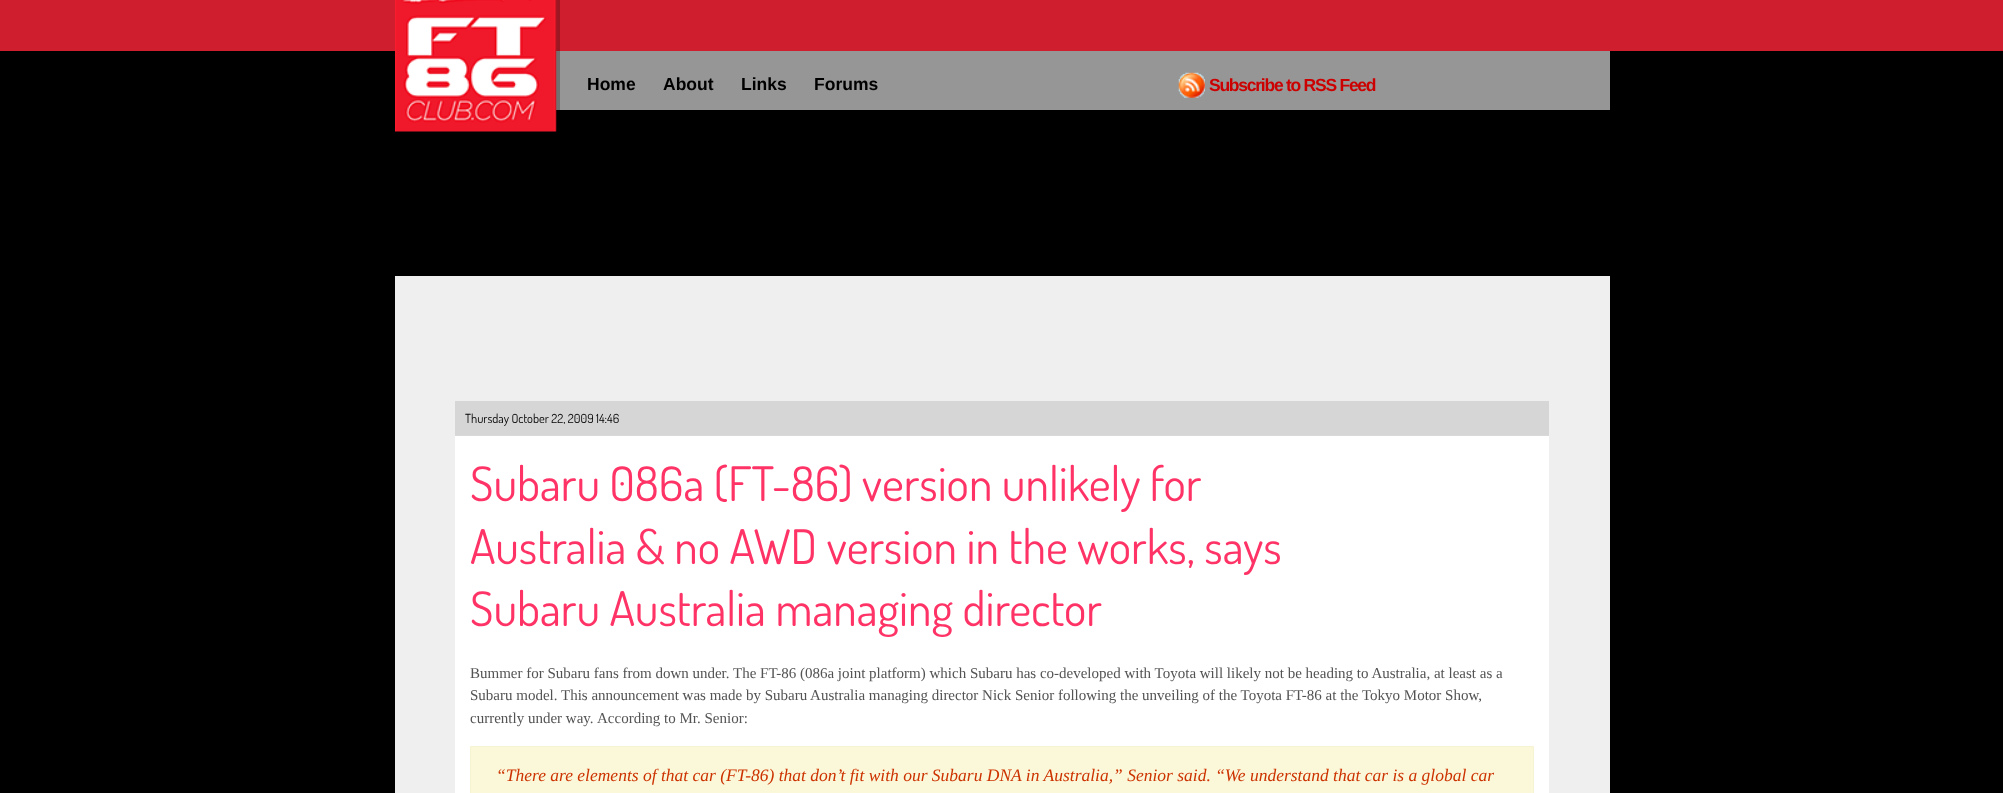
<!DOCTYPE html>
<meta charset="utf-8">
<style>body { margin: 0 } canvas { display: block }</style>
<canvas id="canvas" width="2003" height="793"></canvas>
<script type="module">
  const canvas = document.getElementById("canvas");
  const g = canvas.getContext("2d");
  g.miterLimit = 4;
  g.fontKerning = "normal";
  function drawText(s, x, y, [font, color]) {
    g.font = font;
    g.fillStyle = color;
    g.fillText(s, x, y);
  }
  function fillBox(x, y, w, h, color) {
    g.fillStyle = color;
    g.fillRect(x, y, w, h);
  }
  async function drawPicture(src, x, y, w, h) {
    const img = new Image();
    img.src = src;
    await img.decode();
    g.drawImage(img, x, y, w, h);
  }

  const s1 = ["bold 17.5px Liberation Sans", "#000000"];
  const s2 = ["bold 17.5px Liberation Sans", "#CC0000"];
  const s3 = ["12.5px Dosis", "#000000"];
  const s4 = ["47.5px Dosis", "#FF3366"];
  const s5 = ["15px Liberation Serif", "#535353"];
  const s6 = ["italic 17.5px Liberation Serif", "#CC3300"];

  fillBox(0, 0, 2003, 793, "#000000");
  fillBox(0, 0, 2003, 51, "#CF1F2E");
  fillBox(556, 51, 1054, 59, "#969696");
  g.fillStyle = "rgba(0, 0, 0, 0.25)";
  g.beginPath();
  g.moveTo(399, 131);
  g.lineTo(399, 135);
  g.lineTo(560, 135);
  g.lineTo(560, -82);
  g.lineTo(556, -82);
  g.lineTo(556, 131);
  g.closePath();
  g.fill();
  await drawPicture("pic1.png", 395, 0, 162, 132);
  drawText("Home", 587, 90, s1);
  drawText("About", 663, 90, s1);
  drawText("Links", 741, 90, s1);
  drawText("Forums", 814, 90, s1);
  await drawPicture("pic2.png", 1178, 72, 27, 26);
  g.letterSpacing = "-1.25px";
  drawText("Subscribe to RSS Feed", 1209, 91, s2);
  fillBox(395, 276, 1215, 517, "#EFEFEF");
  fillBox(455, 401, 1094, 34, "#D6D6D6");
  fillBox(455, 435, 1094, 1, "#D9D9D9");
  g.letterSpacing = "0px";
  drawText("Thursday October 22, 2009 14:46", 465, 423, s3);
  fillBox(455, 436, 1094, 357, "#FFFFFF");
  drawText("Subaru 086a (FT-86) version unlikely for", 470, 501, s4);
  drawText("Australia & no AWD version in the works, says", 470, 564, s4);
  drawText("Subaru Australia managing director", 470, 626, s4);
  drawText("Bummer for Subaru fans from down under. The FT-86 (086a joint platform) which Subaru has co-developed with Toyota will likely not be heading to Australia, at least as a", 470, 678, s5);
  drawText("Subaru model. This announcement was made by Subaru Australia managing director Nick Senior following the unveiling of the Toyota FT-86 at the Tokyo Motor Show,", 470, 700, s5);
  drawText("currently under way.", 470, 723, s5);
  drawText("According to Mr. Senior:", 597, 723, s5);
  g.fillStyle = "#FBF7D9";
  g.beginPath();
  g.rect(470.5, 746.5, 1063, 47);
  g.fill();
  g.strokeStyle = "#F6F3D3";
  g.stroke();
  drawText("“There are elements of that car (FT-86) that don’t fit with our Subaru DNA in Australia,” Senior said. “We understand that car is a global car", 496, 781, s6);
</script>
